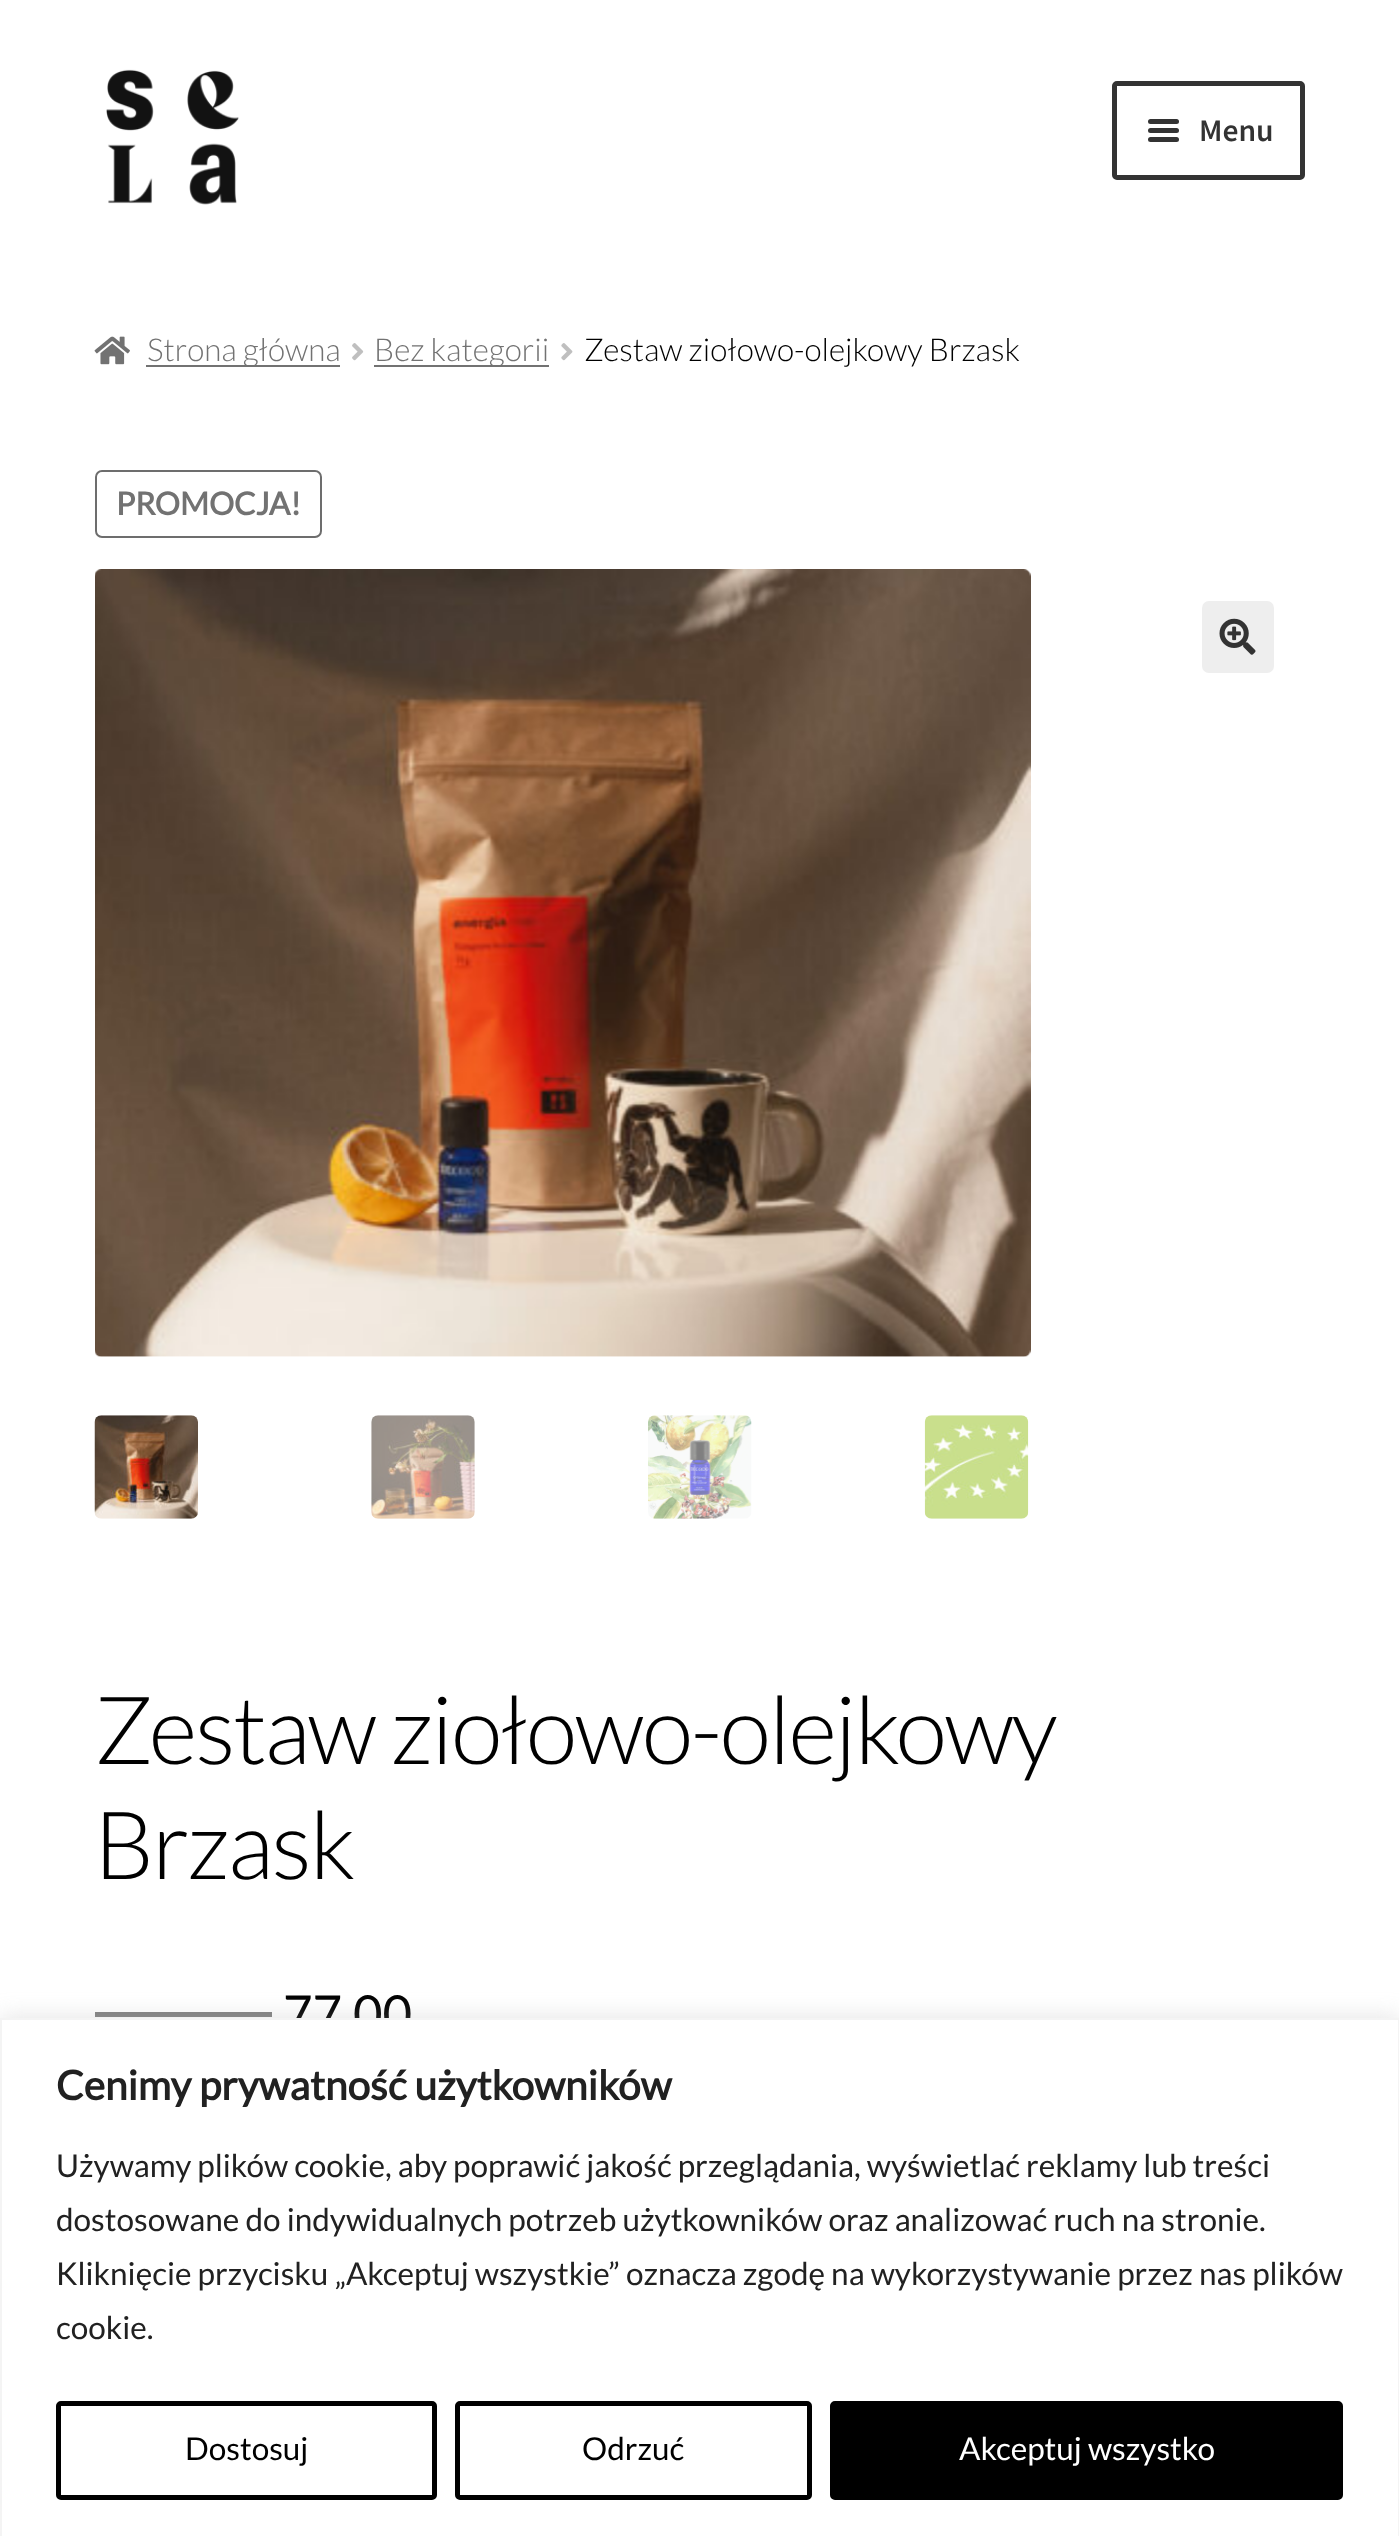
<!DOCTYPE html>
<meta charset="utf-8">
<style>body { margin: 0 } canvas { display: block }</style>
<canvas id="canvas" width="1399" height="2536"></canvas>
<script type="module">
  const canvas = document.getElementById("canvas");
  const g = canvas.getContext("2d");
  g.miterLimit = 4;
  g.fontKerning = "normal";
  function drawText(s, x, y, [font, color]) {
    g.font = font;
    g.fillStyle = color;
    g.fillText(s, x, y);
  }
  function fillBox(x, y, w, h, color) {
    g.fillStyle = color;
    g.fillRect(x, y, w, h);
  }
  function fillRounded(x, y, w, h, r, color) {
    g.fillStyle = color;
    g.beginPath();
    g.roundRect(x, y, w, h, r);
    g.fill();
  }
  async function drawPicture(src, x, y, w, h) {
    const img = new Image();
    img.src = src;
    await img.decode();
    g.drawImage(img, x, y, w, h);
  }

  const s1 = ["600 31.5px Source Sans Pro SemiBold", "#333333"];
  const s2 = ["300 31.5px Lato", "#727272"];
  const s3 = ["300 31.5px Lato", "#000000"];
  const s4 = ["bold 31.5px Lato", "#727272"];
  const s5 = ["300 94.25px Lato", "#000000"];
  const s6 = ["51px Lato", "#000000"];
  const s7 = ["bold 40.5px Lato", "#212121"];
  const s8 = ["31.5px Lato", "#212121"];
  const s9 = ["31.5px Lato", "#000000"];
  const s10 = ["31.5px Lato", "#FFFFFF"];

  fillBox(0, 0, 1399, 2536, "#FFFFFF");
  await drawPicture("pic1.png", 106, 69, 133, 136);
  g.beginPath();
  g.roundRect(1114.5, 83.5, 188, 94, 2.5);
  g.strokeStyle = "#333333";
  g.lineWidth = 5;
  g.stroke();
  fillRounded(1148, 119, 31, 5, 2.5, "#333333");
  fillRounded(1148, 128, 31, 5, 2.5, "#333333");
  drawText("Menu", 1199, 141, s1);
  fillRounded(1148, 137, 31, 5, 2.5, "#333333");
  await drawPicture("pic2.png", 94, 336, 36, 29);
  fillBox(146, 365, 194, 2, "#727272");
  drawText("Strona główna", 147, 361, s2);
  await drawPicture("pic3.png", 352, 343, 12, 18);
  fillBox(374, 365, 175, 2, "#727272");
  drawText("Bez kategorii", 374, 361, s2);
  await drawPicture("pic4.png", 561, 343, 12, 18);
  drawText("Zestaw ziołowo-olejkowy Brzask", 584, 361, s3);
  g.beginPath();
  g.roundRect(96, 471, 225, 66, 6);
  g.strokeStyle = "#6D6D6D";
  g.lineWidth = 2;
  g.stroke();
  drawText("PROMOCJA!", 116, 515, s4);
  await drawPicture("pic5.png", 95, 569, 936, 788);
  fillRounded(1202, 601, 72, 72, 7, "#EEEEEE");
  await drawPicture("pic6.png", 1219, 618, 37, 37);
  await drawPicture("pic7.png", 94, 1415, 104, 104);
  await drawPicture("pic8.png", 371, 1415, 104, 104);
  await drawPicture("pic9.png", 648, 1415, 104, 104);
  await drawPicture("pic10.png", 924, 1415, 105, 104);
  g.letterSpacing = "-2.25px";
  drawText("Zestaw ziołowo-olejkowy", 94, 1764, s5);
  drawText("Brzask", 94, 1879, s5);
  fillBox(95, 2012, 177, 5, "#808080");
  g.letterSpacing = "0px";
  drawText("77,00", 283, 2032, s6);
  g.fillStyle = "rgba(172, 171, 171, 0.3)";
  g.filter = "blur(11px)";
  g.beginPath();
  g.rect(0, 2016, 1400, 520);
  g.fill();
  g.filter = "none";
  g.fillStyle = "#FFFFFF";
  g.beginPath();
  g.rect(1, 2019, 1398, 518);
  g.fill();
  g.strokeStyle = "#F4F4F4";
  g.stroke();
  drawText("Cenimy prywatność użytkowników", 56, 2100, s7);
  drawText("Używamy plików cookie, aby poprawić jakość przeglądania, wyświetlać reklamy lub treści", 56, 2177, s8);
  drawText("dostosowane do indywidualnych potrzeb użytkowników oraz analizować ruch na stronie.", 56, 2231, s8);
  drawText("Kliknięcie przycisku „Akceptuj wszystkie” oznacza zgodę na wykorzystywanie przez nas plików", 56, 2285, s8);
  drawText("cookie.", 56, 2339, s8);
  g.beginPath();
  g.roundRect(58.5, 2403.5, 376, 94, 2.5);
  g.strokeStyle = "#000000";
  g.lineWidth = 5;
  g.stroke();
  drawText("Dostosuj", 185, 2460, s9);
  g.beginPath();
  g.roundRect(457.5, 2403.5, 352, 94, 2.5);
  g.stroke();
  drawText("Odrzuć", 582, 2460, s9);
  g.beginPath();
  g.roundRect(832.5, 2403.5, 508, 94, 2.5);
  g.fill();
  g.stroke();
  drawText("Akceptuj wszystko", 959, 2460, s10);
</script>
